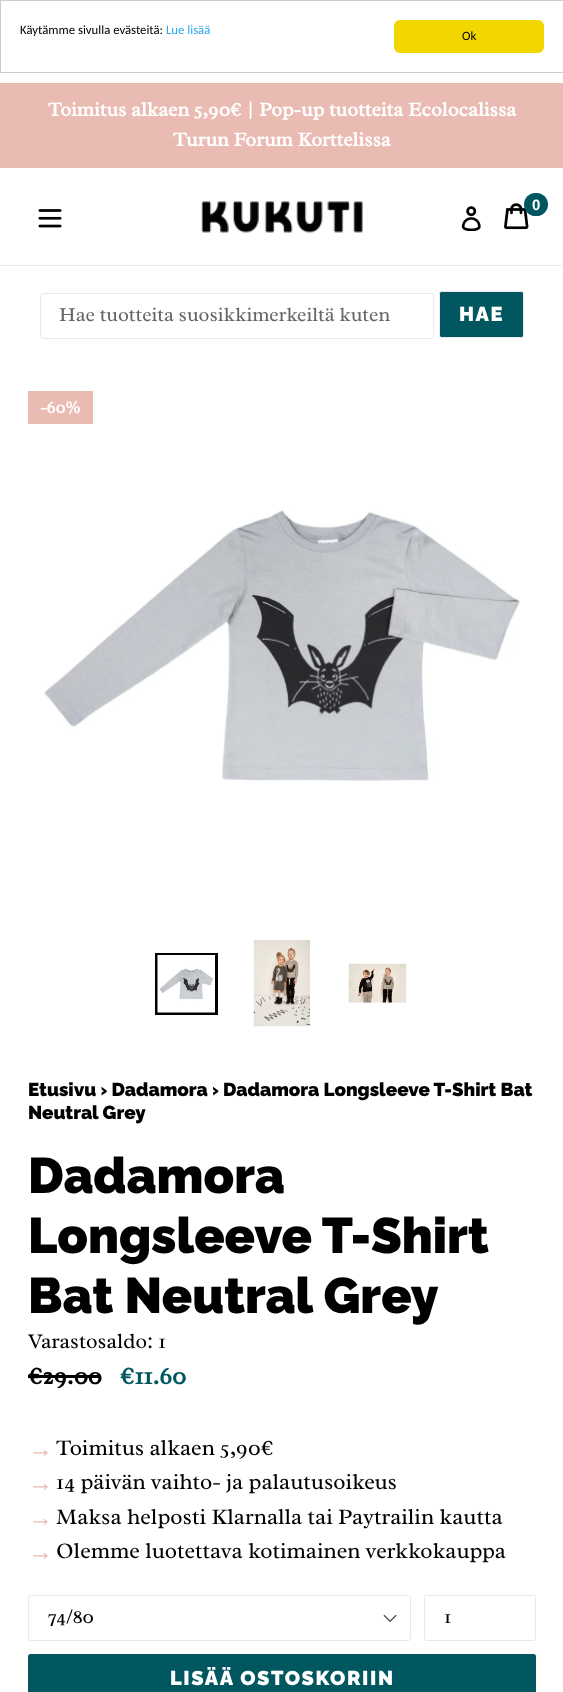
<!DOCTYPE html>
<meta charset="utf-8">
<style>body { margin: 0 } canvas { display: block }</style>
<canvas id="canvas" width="563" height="1692"></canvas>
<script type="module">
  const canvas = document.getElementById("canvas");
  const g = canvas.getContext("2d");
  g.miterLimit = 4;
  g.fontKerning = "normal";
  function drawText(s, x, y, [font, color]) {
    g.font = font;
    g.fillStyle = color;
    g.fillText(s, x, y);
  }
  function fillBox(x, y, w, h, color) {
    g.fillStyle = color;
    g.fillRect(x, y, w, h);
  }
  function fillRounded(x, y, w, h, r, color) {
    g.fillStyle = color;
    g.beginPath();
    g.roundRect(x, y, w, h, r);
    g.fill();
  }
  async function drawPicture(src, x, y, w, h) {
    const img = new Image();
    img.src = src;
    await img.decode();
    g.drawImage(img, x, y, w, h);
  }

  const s1 = ["12.75px Carlito", "#000000"];
  const s2 = ["12.75px Carlito", "#31A8F0"];
  const s3 = ["bold 20px Radley", "#FFFFFF"];
  const s4 = ["bold 15px Liberation Sans", "#FFFFFF"];
  const s5 = ["20px Radley", "#666666"];
  const s6 = ["100 20px Raleway", "#FFFFFF"];
  const s7 = ["bold 17.5px Radley", "#FFFFFF"];
  const s8 = ["100 18.75px Raleway", "#000000"];
  const s9 = ["100 50px Raleway", "#000000"];
  const s10 = ["21.25px Radley", "#000000"];
  const s11 = ["bold 25px Radley", "#000000"];
  const s12 = ["bold 25px Radley", "#005760"];
  const s13 = ["25px Liberation Serif", "#EABCB4"];
  const s14 = ["22.5px Radley", "#000000"];
  const s15 = ["20px Radley", "#000000"];

  fillBox(0, 0, 563, 1692, "#FFFFFF");
  g.strokeStyle = "#CCCCCC";
  g.strokeRect(0.5, 0.5, 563, 72);
  drawText("Käytämme sivulla evästeitä:", 20, 34, s1);
  drawText("Lue lisää", 166, 34, s2);
  fillRounded(394, 20, 150, 33, 6, "#F1D600");
  drawText("Ok", 462, 40, s1);
  fillBox(0, 83, 563, 85, "#EABBB3");
  drawText("Toimitus alkaen 5,90€ | Pop-up tuotteita Ecolocalissa", 48, 116, s3);
  drawText("Turun Forum Korttelissa", 173, 146, s3);
  fillBox(0, 265, 563, 1, "#E8E9EB");
  await drawPicture("pic1.png", 38, 209, 24, 19);
  await drawPicture("pic2.png", 201, 201, 162, 32);
  await drawPicture("pic3.png", 461, 206, 20, 25);
  await drawPicture("pic4.png", 504, 203, 25, 27);
  fillRounded(524, 193, 24, 23, 11.5, "#005760");
  drawText("0", 532, 210, s4);
  g.beginPath();
  g.roundRect(40.5, 293.5, 393, 45, 2);
  g.strokeStyle = "#E8E9EB";
  g.stroke();
  drawText("Hae tuotteita suosikkimerkeiltä kuten", 59, 321, s5);
  g.fillStyle = "#005760";
  g.beginPath();
  g.roundRect(439.5, 291.5, 84, 46, 2);
  g.fill();
  g.stroke();
  g.letterSpacing = "1.6px";
  drawText("HAE", 459, 321, s6);
  fillBox(28, 391, 65, 33, "#EABBB3");
  g.letterSpacing = "0px";
  drawText("-60%", 40, 413, s7);
  await drawPicture("pic5.png", 44, 510, 476, 271);
  g.strokeStyle = "#000000";
  g.lineWidth = 3;
  g.strokeRect(156.5, 954.5, 60, 59);
  await drawPicture("pic6.png", 157, 955, 58, 58);
  await drawPicture("pic7.png", 253, 940, 57, 87);
  await drawPicture("pic8.png", 348, 963, 59, 40);
  drawText("Etusivu › Dadamora › Dadamora Longsleeve T-Shirt Bat", 28, 1096, s8);
  drawText("Neutral Grey", 28, 1119, s8);
  drawText("Dadamora", 28, 1193, s9);
  drawText("Longsleeve T-Shirt", 28, 1253, s9);
  drawText("Bat Neutral Grey", 28, 1313, s9);
  drawText("Varastosaldo: 1", 28, 1348, s10);
  drawText("€29.00", 28, 1384, s11);
  fillBox(28, 1375, 73, 3, "#000000");
  drawText("€11.60", 120, 1384, s12);
  drawText("→", 28, 1457, s13);
  drawText("Toimitus alkaen 5,90€", 56, 1455, s14);
  drawText("→", 28, 1491, s13);
  drawText("14 päivän vaihto- ja palautusoikeus", 56, 1489, s14);
  drawText("→", 28, 1526, s13);
  drawText("Maksa helposti Klarnalla tai Paytrailin kautta", 56, 1524, s14);
  drawText("→", 28, 1560, s13);
  drawText("Olemme luotettava kotimainen verkkokauppa", 56, 1558, s14);
  await drawPicture("pic9.png", 383, 1614, 14, 8);
  g.beginPath();
  g.roundRect(28.5, 1595.5, 382, 45, 2);
  g.strokeStyle = "#E8E9EB";
  g.lineWidth = 1;
  g.stroke();
  drawText("74/80", 48, 1623, s15);
  g.beginPath();
  g.roundRect(424.5, 1595.5, 111, 45, 2);
  g.stroke();
  drawText("1", 444, 1623, s15);
  fillRounded(28, 1654, 508, 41, 2.5, "#005760");
  g.letterSpacing = "1.6px";
  drawText("LISÄÄ OSTOSKORIIN", 170, 1685, s6);
</script>
